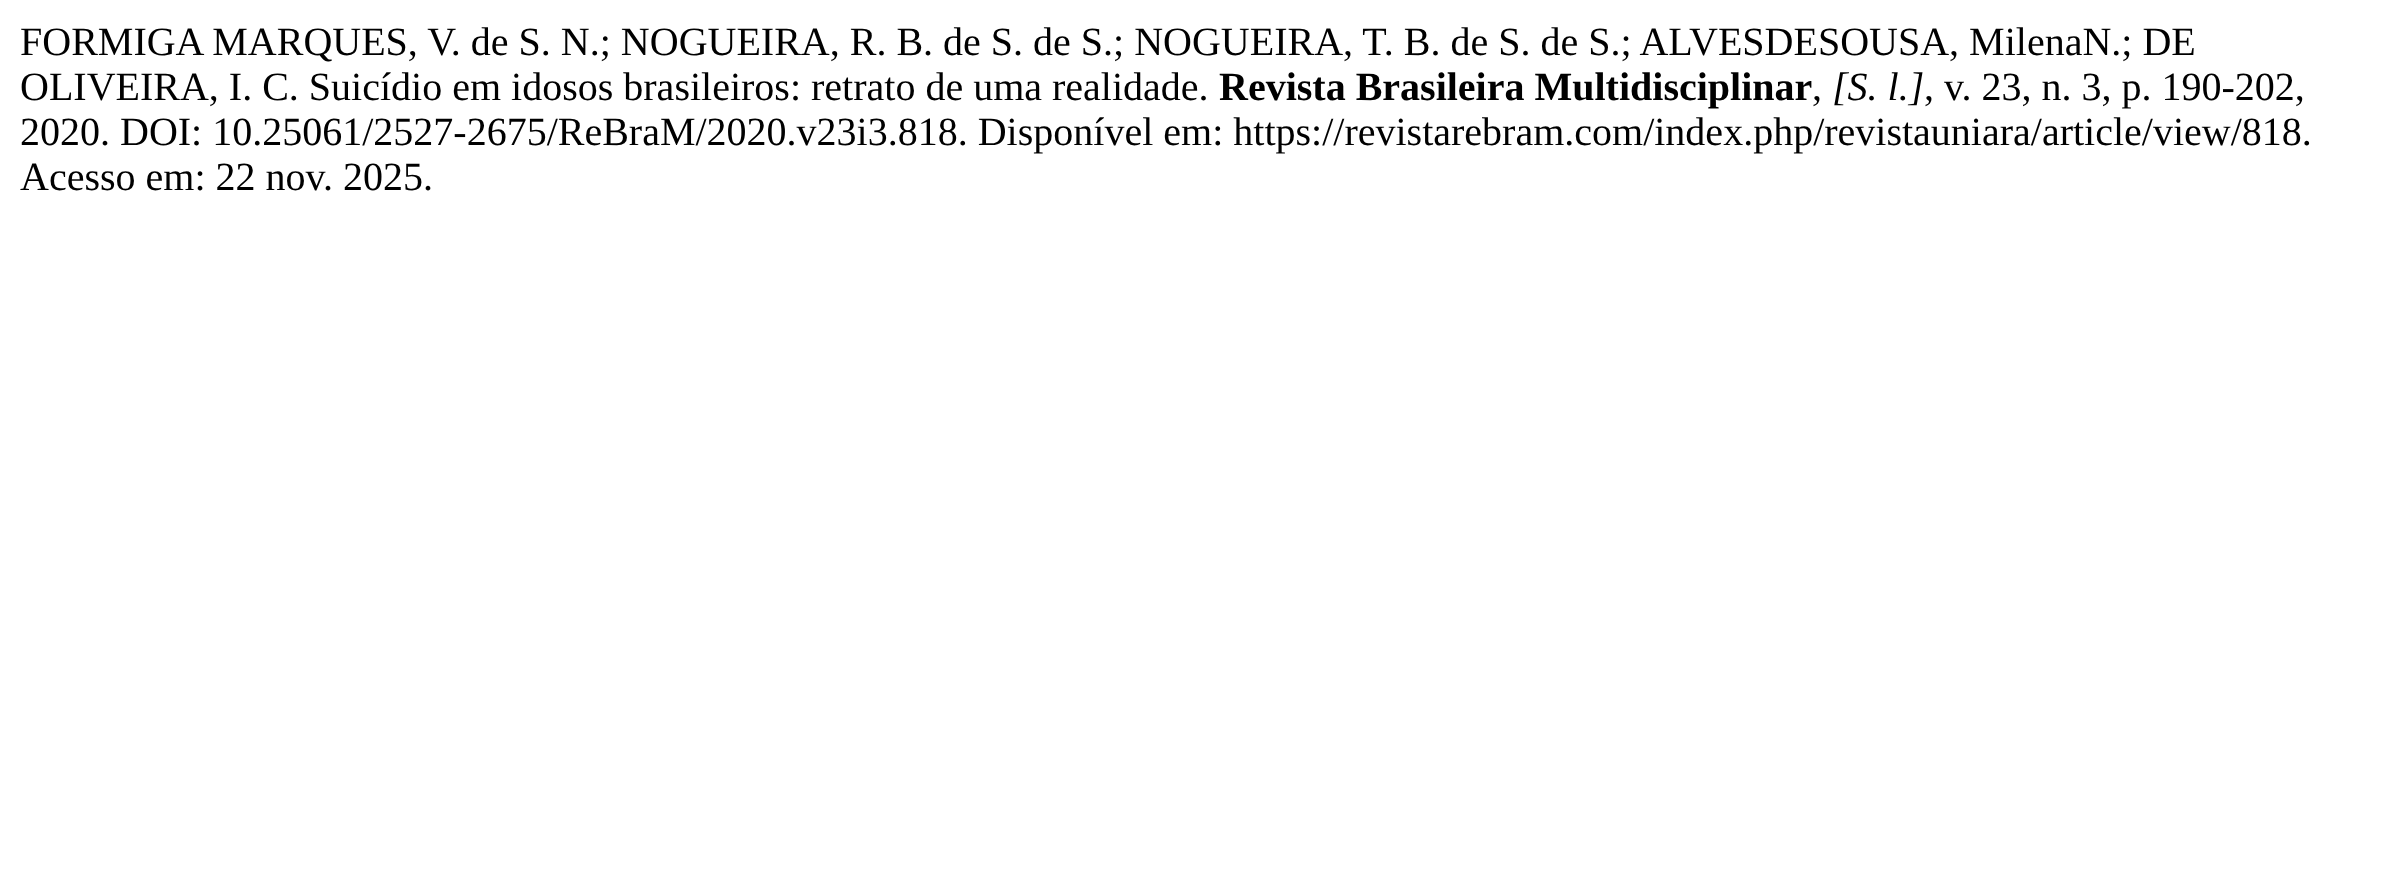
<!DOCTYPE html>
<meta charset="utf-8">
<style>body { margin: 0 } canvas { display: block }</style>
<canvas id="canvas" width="2403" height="889"></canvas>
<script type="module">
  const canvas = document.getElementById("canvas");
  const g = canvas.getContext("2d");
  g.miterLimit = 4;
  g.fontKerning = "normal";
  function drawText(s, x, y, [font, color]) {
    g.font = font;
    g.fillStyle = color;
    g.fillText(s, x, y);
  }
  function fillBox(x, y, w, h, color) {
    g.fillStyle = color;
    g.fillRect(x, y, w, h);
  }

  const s1 = ["40px Liberation Serif", "#000000"];
  const s2 = ["bold 40px Liberation Serif", "#000000"];
  const s3 = ["italic 40px Liberation Serif", "#000000"];

  fillBox(0, 0, 2403, 889, "#FFFFFF");
  drawText("FORMIGA MARQUES, V. de S. N.; NOGUEIRA, R. B. de S. de S.; NOGUEIRA, T. B. de S. de S.; ALVESDESOUSA, MilenaN.; DE", 20, 55, s1);
  drawText("OLIVEIRA, I. C. Suicídio em idosos brasileiros: retrato de uma realidade.", 20, 100, s1);
  drawText("Revista Brasileira Multidisciplinar", 1219, 100, s2);
  drawText(",", 1812, 100, s1);
  drawText("[S. l.]", 1832, 100, s3);
  drawText(", v. 23, n. 3, p. 190-202,", 1924, 100, s1);
  drawText("2020. DOI: 10.25061/2527-2675/ReBraM/2020.v23i3.818. Disponível em: https://revistarebram.com/index.php/revistauniara/article/view/818.", 20, 145, s1);
  drawText("Acesso em: 22 nov. 2025.", 20, 190, s1);
</script>
